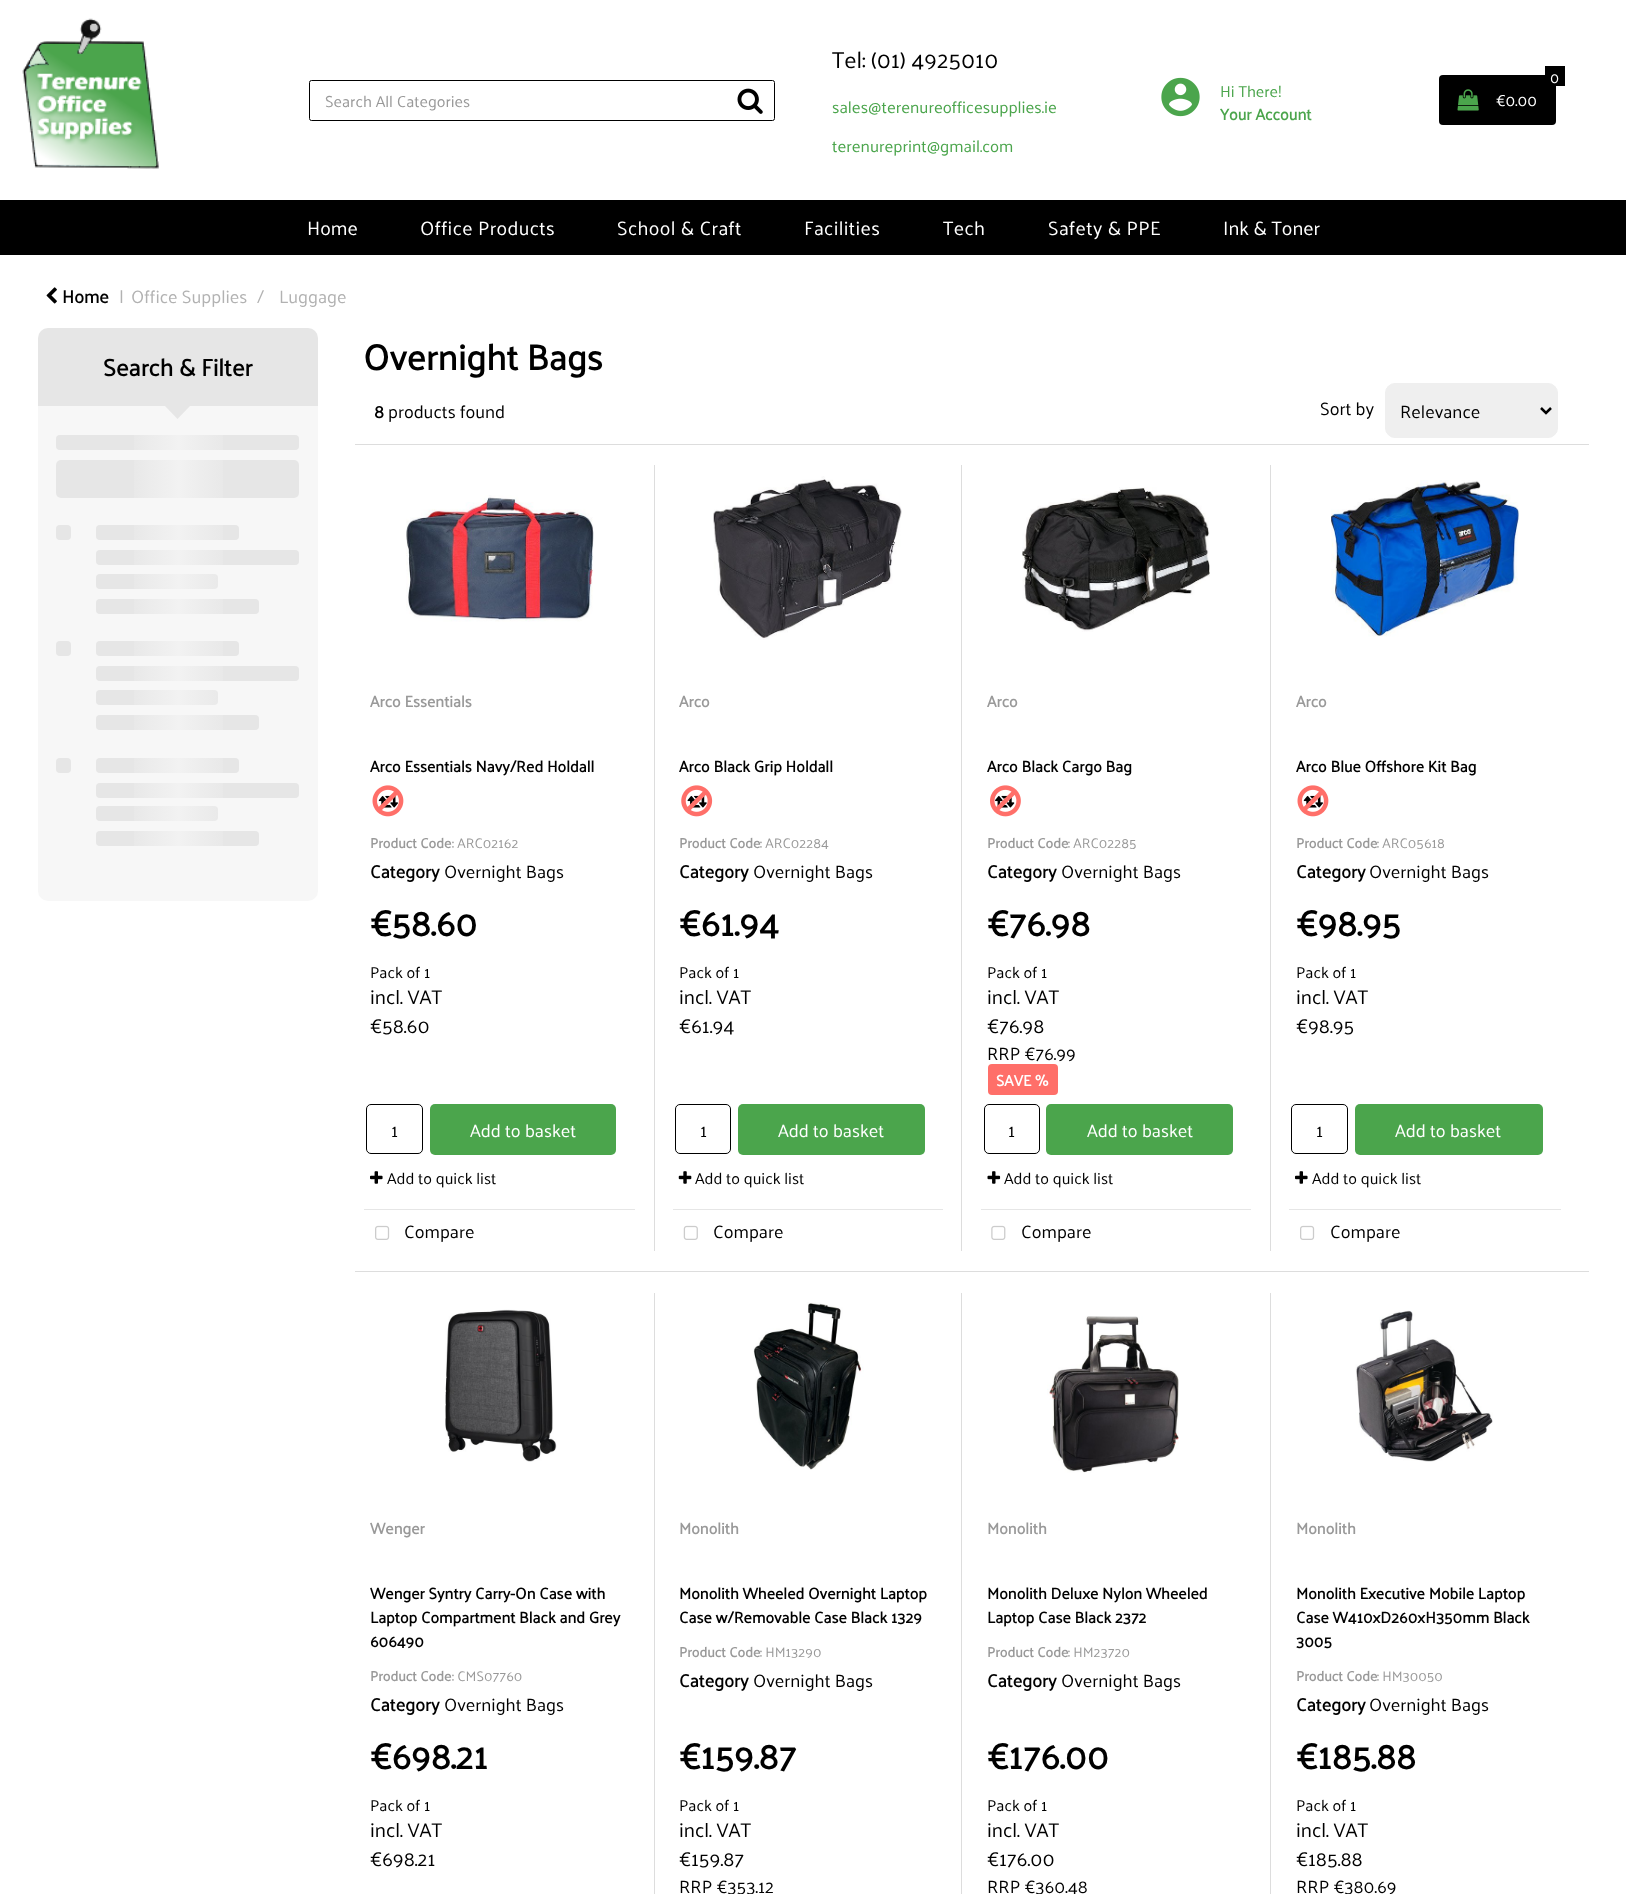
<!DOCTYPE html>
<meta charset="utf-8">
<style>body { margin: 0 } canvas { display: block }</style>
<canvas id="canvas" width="1626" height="1894"></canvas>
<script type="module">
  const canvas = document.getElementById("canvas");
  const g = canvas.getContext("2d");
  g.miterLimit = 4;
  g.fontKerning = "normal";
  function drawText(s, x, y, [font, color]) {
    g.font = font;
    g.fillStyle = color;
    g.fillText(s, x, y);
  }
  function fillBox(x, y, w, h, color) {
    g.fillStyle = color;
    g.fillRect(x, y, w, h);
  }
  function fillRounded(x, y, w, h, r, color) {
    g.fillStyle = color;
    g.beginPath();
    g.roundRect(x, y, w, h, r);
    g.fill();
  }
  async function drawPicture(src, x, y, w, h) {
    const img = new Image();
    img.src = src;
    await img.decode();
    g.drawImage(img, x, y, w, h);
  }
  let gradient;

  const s1 = ["16px Palanquin", "#999999"];
  const s2 = ["23.25px Palanquin", "#000000"];
  const s3 = ["16.7px Palanquin", "#4BA54C"];
  const s4 = ["16px Palanquin", "#4BA54C"];
  const s5 = ["bold 16px Palanquin", "#4BA54C"];
  const s6 = ["15px Palanquin", "#FFFFFF"];
  const s7 = ["16px Palanquin", "#FFFFFF"];
  const s8 = ["19.5px Palanquin", "#FFFFFF"];
  const s9 = ["bold 18px Palanquin", "#000000"];
  const s10 = ["18px Palanquin", "#B2B2B2"];
  const s11 = ["bold 24px Palanquin", "#000000"];
  const s12 = ["bold 36px Palanquin", "#000000"];
  const s13 = ["18px Palanquin", "#000000"];
  const s14 = ["bold 15.8px Palanquin", "#999999"];
  const s15 = ["bold 15.8px Palanquin", "#000000"];
  const s16 = ["bold 14px Palanquin", "#999999"];
  const s17 = ["14px Palanquin", "#999999"];
  const s18 = ["16px Palanquin", "#000000"];
  const s19 = ["20px Palanquin", "#000000"];
  const s20 = ["18px Palanquin", "#FFFFFF"];
  const s21 = ["bold 15.5px Palanquin", "#FFFFFF"];

  fillBox(0, 0, 1626, 1894, "#FFFFFF");
  await drawPicture("pic1.png", 22, 18, 137, 151);
  g.beginPath();
  g.roundRect(309.5, 80.5, 465, 40, 2);
  g.strokeStyle = "#000000";
  g.stroke();
  drawText("Search All Categories", 325, 107, s1);
  await drawPicture("pic2.png", 737, 88, 26, 26);
  drawText("Tel: (01) 4925010", 832, 68, s2);
  drawText("sales@terenureofficesupplies.ie", 832, 113, s3);
  drawText("terenureprint@gmail.com", 832, 152, s3);
  await drawPicture("pic3.png", 1161, 77, 39, 40);
  drawText("Hi There!", 1220, 97, s4);
  drawText("Your Account", 1220, 120, s5);
  fillRounded(1439, 75, 117, 50, 4, "#000000");
  fillBox(1545, 66, 20, 20, "#000000");
  drawText("0", 1550, 83, s6);
  await drawPicture("pic4.png", 1457, 89, 22, 22);
  drawText("€0.00", 1496, 106, s7);
  fillBox(0, 200, 1626, 55, "#000000");
  drawText("Home", 307, 235, s8);
  g.letterSpacing = "0.4px";
  drawText("Office Products", 420, 235, s8);
  drawText("School & Craft", 617, 235, s8);
  drawText("Facilities", 804, 235, s8);
  drawText("Tech", 943, 235, s8);
  drawText("Safety & PPE", 1048, 235, s8);
  g.letterSpacing = "0px";
  drawText("Ink & Toner", 1223, 235, s8);
  await drawPicture("pic5.png", 46, 287, 11, 17);
  drawText("Home", 62, 303, s9);
  drawText("|", 119, 303, s10);
  drawText("Office Supplies", 131, 303, s10);
  drawText("/", 257, 303, s10);
  drawText("Luggage", 279, 303, s10);
  g.fillStyle = "#F7F7F7";
  g.beginPath();
  g.roundRect(38, 338, 280, 563, [0, 0, 10, 10]);
  g.fill();
  g.fillStyle = "#E6E6E6";
  g.beginPath();
  g.roundRect(38, 328, 280, 78, [10, 10, 0, 0]);
  g.fill();
  drawText("Search & Filter", 103, 376, s11);
  g.fillStyle = "#E6E6E6";
  g.beginPath();
  g.moveTo(165, 406);
  g.lineTo(190, 406);
  g.lineTo(177.5, 419);
  g.closePath();
  g.fill();
  fillRounded(56, 435, 243, 15, 4, "#E6E6E6");
  fillRounded(56, 460, 243, 38, 5, "#E6E6E6");
  fillRounded(96, 525, 143, 15, 4, "#E6E6E6");
  fillRounded(56, 525, 15, 15, 4, "#E6E6E6");
  fillRounded(96, 550, 203, 15, 4, "#E6E6E6");
  fillRounded(96, 574, 122, 15, 4, "#E6E6E6");
  fillRounded(96, 599, 163, 15, 4, "#E6E6E6");
  fillRounded(96, 641, 143, 15, 4, "#E6E6E6");
  fillRounded(56, 641, 15, 15, 4, "#E6E6E6");
  fillRounded(96, 666, 203, 15, 4, "#E6E6E6");
  fillRounded(96, 690, 122, 15, 4, "#E6E6E6");
  fillRounded(96, 715, 163, 15, 4, "#E6E6E6");
  fillRounded(96, 758, 143, 15, 4, "#E6E6E6");
  fillRounded(56, 758, 15, 15, 4, "#E6E6E6");
  fillRounded(96, 783, 203, 15, 4, "#E6E6E6");
  fillRounded(96, 806, 122, 15, 4, "#E6E6E6");
  fillRounded(96, 831, 163, 15, 4, "#E6E6E6");
  gradient = g.createLinearGradient(-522, 656, 879, 656);
  gradient.addColorStop(0.46, "rgba(247, 247, 247, 0)");
  gradient.addColorStop(0.5, "rgba(247, 247, 247, 0.7)");
  gradient.addColorStop(0.54, "rgba(247, 247, 247, 0)");
  g.fillStyle = gradient;
  g.fillRect(134, 435, 89, 411);
  drawText("Overnight Bags", 363, 370, s12);
  drawText("8", 374, 418, s9);
  drawText("products found", 388, 418, s13);
  drawText("Sort by", 1320, 415, s13);
  g.fillStyle = "#EFEFEF";
  g.beginPath();
  g.roundRect(1385.5, 383.5, 172, 54, 9.5);
  g.fill();
  g.strokeStyle = "#EFEFEF";
  g.stroke();
  g.beginPath();
  g.moveTo(1541, 408);
  g.lineTo(1546, 413);
  g.lineTo(1551, 408);
  g.strokeStyle = "#000000";
  g.lineWidth = 2.5;
  g.stroke();
  drawText("Relevance", 1400, 418, s13);
  fillBox(355, 444, 1234, 1, "#DDDDDD");
  fillBox(654, 465, 1, 786, "#DDDDDD");
  await drawPicture("pic6.png", 406, 495, 188, 127);
  drawText("Arco Essentials", 370, 707, s14);
  drawText("Arco Essentials Navy/Red Holdall", 370, 772, s15);
  await drawPicture("pic8.png", 378, 795, 20, 13);
  await drawPicture("pic7.png", 372, 785, 32, 32);
  drawText("Product Code", 370, 848, s16);
  drawText(": ARC02162", 452, 848, s17);
  drawText("Category", 370, 878, s9);
  drawText("Overnight Bags", 444, 878, s13);
  drawText("€58.60", 370, 936, s12);
  drawText("Pack of 1", 370, 978, s18);
  drawText("incl. VAT", 370, 1004, s19);
  drawText("€58.60", 370, 1033, s19);
  g.beginPath();
  g.roundRect(366.5, 1104.5, 56, 49, 4.5);
  g.lineWidth = 1;
  g.stroke();
  drawText("1", 391, 1137, s13);
  fillRounded(430, 1104, 186, 51, 5, "#4BA54C");
  drawText("Add to basket", 470, 1137, s20);
  await drawPicture("pic9.png", 370, 1171, 13, 13);
  drawText("Add to quick list", 387, 1184, s18);
  fillBox(364, 1209, 271, 1, "#E6E6E6");
  await drawPicture("pic10.png", 375, 1225, 15, 15);
  drawText("Compare", 404, 1238, s13);
  fillBox(961, 465, 1, 786, "#DDDDDD");
  await drawPicture("pic11.png", 713, 476, 189, 164);
  drawText("Arco", 679, 707, s14);
  drawText("Arco Black Grip Holdall", 679, 772, s15);
  await drawPicture("pic13.png", 687, 795, 20, 13);
  await drawPicture("pic12.png", 681, 785, 32, 32);
  drawText("Product Code", 679, 848, s16);
  drawText(": ARC02284", 760, 848, s17);
  drawText("Category", 679, 878, s9);
  drawText("Overnight Bags", 753, 878, s13);
  drawText("€61.94", 679, 936, s12);
  drawText("Pack of 1", 679, 978, s18);
  drawText("incl. VAT", 679, 1004, s19);
  drawText("€61.94", 679, 1033, s19);
  g.beginPath();
  g.roundRect(675.5, 1104.5, 55, 49, 4.5);
  g.stroke();
  drawText("1", 700, 1137, s13);
  fillRounded(738, 1104, 187, 51, 5, "#4BA54C");
  drawText("Add to basket", 778, 1137, s20);
  await drawPicture("pic14.png", 678, 1171, 14, 13);
  drawText("Add to quick list", 695, 1184, s18);
  fillBox(673, 1209, 270, 1, "#E6E6E6");
  await drawPicture("pic15.png", 683, 1225, 15, 15);
  drawText("Compare", 713, 1238, s13);
  fillBox(1270, 465, 1, 786, "#DDDDDD");
  await drawPicture("pic16.png", 1022, 487, 188, 145);
  drawText("Arco", 987, 707, s14);
  drawText("Arco Black Cargo Bag", 987, 772, s15);
  await drawPicture("pic18.png", 995, 795, 20, 13);
  await drawPicture("pic17.png", 990, 785, 31, 32);
  drawText("Product Code", 987, 848, s16);
  drawText(": ARC02285", 1068, 848, s17);
  drawText("Category", 987, 878, s9);
  drawText("Overnight Bags", 1061, 878, s13);
  drawText("€76.98", 987, 936, s12);
  drawText("Pack of 1", 987, 978, s18);
  drawText("incl. VAT", 987, 1004, s19);
  drawText("€76.98", 987, 1033, s19);
  drawText("RRP €76.99", 987, 1060, s13);
  g.fillStyle = "#FF6F69";
  g.beginPath();
  g.roundRect(988, 1064, 47, 31, [4, 0, 0, 4]);
  g.fill();
  g.beginPath();
  g.roundRect(1035, 1064, 23, 31, [0, 4, 4, 0]);
  g.fill();
  drawText("SAVE %", 996, 1086, s21);
  g.beginPath();
  g.roundRect(984.5, 1104.5, 55, 49, 4.5);
  g.stroke();
  drawText("1", 1008, 1137, s13);
  fillRounded(1046, 1104, 187, 51, 5, "#4BA54C");
  drawText("Add to basket", 1087, 1137, s20);
  await drawPicture("pic19.png", 987, 1171, 14, 13);
  drawText("Add to quick list", 1004, 1184, s18);
  fillBox(981, 1209, 270, 1, "#E6E6E6");
  await drawPicture("pic20.png", 991, 1225, 15, 15);
  drawText("Compare", 1021, 1238, s13);
  await drawPicture("pic21.png", 1331, 480, 188, 157);
  drawText("Arco", 1296, 707, s14);
  drawText("Arco Blue Offshore Kit Bag", 1296, 772, s15);
  await drawPicture("pic8.png", 1303, 795, 20, 13);
  await drawPicture("pic7.png", 1297, 785, 32, 32);
  drawText("Product Code", 1296, 848, s16);
  drawText(": ARC05618", 1377, 848, s17);
  drawText("Category", 1296, 878, s9);
  drawText("Overnight Bags", 1369, 878, s13);
  drawText("€98.95", 1296, 936, s12);
  drawText("Pack of 1", 1296, 978, s18);
  drawText("incl. VAT", 1296, 1004, s19);
  drawText("€98.95", 1296, 1033, s19);
  g.beginPath();
  g.roundRect(1291.5, 1104.5, 56, 49, 4.5);
  g.stroke();
  drawText("1", 1316, 1137, s13);
  fillRounded(1355, 1104, 188, 51, 5, "#4BA54C");
  drawText("Add to basket", 1395, 1137, s20);
  await drawPicture("pic9.png", 1295, 1171, 13, 13);
  drawText("Add to quick list", 1312, 1184, s18);
  fillBox(1289, 1209, 272, 1, "#E6E6E6");
  await drawPicture("pic10.png", 1300, 1225, 15, 15);
  drawText("Compare", 1330, 1238, s13);
  fillBox(355, 1271, 1234, 1, "#DDDDDD");
  fillBox(654, 1293, 1, 601, "#DDDDDD");
  await drawPicture("pic22.png", 445, 1309, 112, 153);
  drawText("Wenger", 370, 1534, s14);
  drawText("Wenger Syntry Carry-On Case with", 370, 1599, s15);
  drawText("Laptop Compartment Black and Grey", 370, 1623, s15);
  drawText("606490", 370, 1647, s15);
  drawText("Product Code", 370, 1681, s16);
  drawText(": CMS07760", 452, 1681, s17);
  drawText("Category", 370, 1711, s9);
  drawText("Overnight Bags", 444, 1711, s13);
  drawText("€698.21", 370, 1769, s12);
  drawText("Pack of 1", 370, 1811, s18);
  drawText("incl. VAT", 370, 1837, s19);
  drawText("€698.21", 370, 1866, s19);
  fillBox(961, 1293, 1, 601, "#DDDDDD");
  await drawPicture("pic23.png", 753, 1302, 111, 168);
  drawText("Monolith", 679, 1534, s14);
  drawText("Monolith Wheeled Overnight Laptop", 679, 1599, s15);
  drawText("Case w/Removable Case Black 1329", 679, 1623, s15);
  drawText("Product Code", 679, 1657, s16);
  drawText(": HM13290", 760, 1657, s17);
  drawText("Category", 679, 1687, s9);
  drawText("Overnight Bags", 753, 1687, s13);
  drawText("€159.87", 679, 1769, s12);
  drawText("Pack of 1", 679, 1811, s18);
  drawText("incl. VAT", 679, 1837, s19);
  drawText("€159.87", 679, 1866, s19);
  drawText("RRP €353.12", 679, 1893, s13);
  fillBox(1270, 1293, 1, 601, "#DDDDDD");
  await drawPicture("pic24.png", 1047, 1316, 132, 157);
  drawText("Monolith", 987, 1534, s14);
  drawText("Monolith Deluxe Nylon Wheeled", 987, 1599, s15);
  drawText("Laptop Case Black 2372", 987, 1623, s15);
  drawText("Product Code", 987, 1657, s16);
  drawText(": HM23720", 1068, 1657, s17);
  drawText("Category", 987, 1687, s9);
  drawText("Overnight Bags", 1061, 1687, s13);
  drawText("€176.00", 987, 1769, s12);
  drawText("Pack of 1", 987, 1811, s18);
  drawText("incl. VAT", 987, 1837, s19);
  drawText("€176.00", 987, 1866, s19);
  drawText("RRP €360.48", 987, 1893, s13);
  await drawPicture("pic25.png", 1355, 1310, 138, 152);
  drawText("Monolith", 1296, 1534, s14);
  drawText("Monolith Executive Mobile Laptop", 1296, 1599, s15);
  drawText("Case W410xD260xH350mm Black", 1296, 1623, s15);
  drawText("3005", 1296, 1647, s15);
  drawText("Product Code", 1296, 1681, s16);
  drawText(": HM30050", 1377, 1681, s17);
  drawText("Category", 1296, 1711, s9);
  drawText("Overnight Bags", 1369, 1711, s13);
  drawText("€185.88", 1296, 1769, s12);
  drawText("Pack of 1", 1296, 1811, s18);
  drawText("incl. VAT", 1296, 1837, s19);
  drawText("€185.88", 1296, 1866, s19);
  drawText("RRP €380.69", 1296, 1893, s13);
</script>
